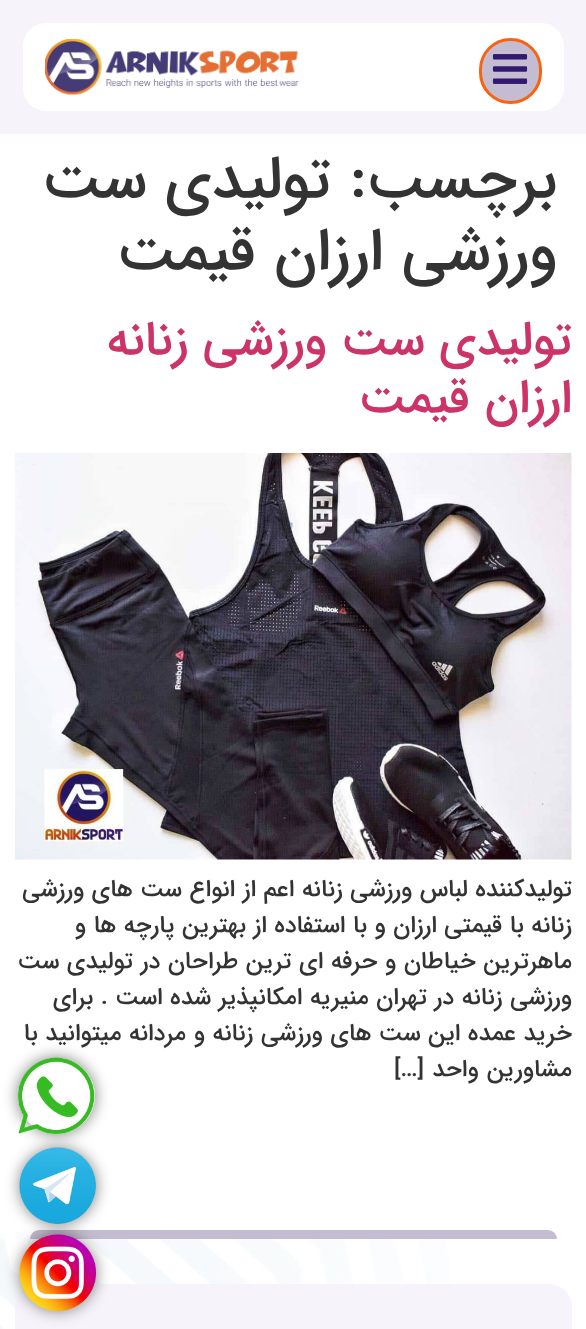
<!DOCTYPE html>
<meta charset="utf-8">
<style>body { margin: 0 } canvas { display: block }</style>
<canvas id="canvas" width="586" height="1329"></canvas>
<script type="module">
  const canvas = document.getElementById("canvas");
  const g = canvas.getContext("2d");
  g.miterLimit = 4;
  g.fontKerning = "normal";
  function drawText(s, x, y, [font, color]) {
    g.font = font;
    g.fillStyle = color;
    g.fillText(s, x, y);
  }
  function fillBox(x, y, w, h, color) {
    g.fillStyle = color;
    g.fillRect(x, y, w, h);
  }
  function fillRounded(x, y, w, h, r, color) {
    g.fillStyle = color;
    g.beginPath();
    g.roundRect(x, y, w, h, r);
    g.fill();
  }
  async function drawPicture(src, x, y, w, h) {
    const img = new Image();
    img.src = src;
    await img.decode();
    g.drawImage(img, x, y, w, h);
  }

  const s1 = ["500 60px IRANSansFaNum", "#333333"];
  const s2 = ["500 48px IRANSansFaNum", "#CC3366"];
  const s3 = ["500 24px IRANSansFaNum", "#333333"];

  fillBox(0, 0, 586, 1329, "#FFFFFF");
  fillBox(0, 0, 586, 134, "#F6F4FA");
  fillRounded(23, 23, 541, 88, 23, "#FFFFFF");
  g.fillStyle = "#C4BDD1";
  g.beginPath();
  g.roundRect(480.5, 39.5, 60, 63, 30);
  g.fill();
  g.strokeStyle = "#F96210";
  g.lineWidth = 3;
  g.stroke();
  await drawPicture("pic1.png", 492, 54, 36, 30);
  await drawPicture("pic2.png", 45, 39, 254, 56);
  g.letterSpacing = "-0.08px";
  g.direction = "rtl";
  drawText("برچسب:", 557, 197, s1);
  g.wordSpacing = "1px";
  drawText("تولیدی ست", 331, 197, s1);
  drawText("ورزشی ارزان قیمت", 557, 269, s1);
  g.wordSpacing = "0.5px";
  drawText("تولیدی ست ورزشی زنانه", 572, 354, s2);
  g.wordSpacing = "1px";
  drawText("ارزان قیمت", 572, 412, s2);
  await drawPicture("pic3.png", 15, 453, 557, 407);
  g.wordSpacing = "0.5px";
  drawText("تولیدکننده لباس ورزشی زنانه اعم از انواع ست های ورزشی", 572, 896, s3);
  g.wordSpacing = "0.4px";
  drawText("زنانه با قیمتی ارزان و با استفاده از بهترین پارچه ها و", 572, 932, s3);
  g.wordSpacing = "0.5px";
  drawText("ماهرترین خیاطان و حرفه ای ترین طراحان در تولیدی ست", 572, 968, s3);
  drawText("ورزشی زنانه در تهران منیریه امکانپذیر شده است . برای", 572, 1004, s3);
  drawText("خرید عمده این ست های ورزشی زنانه و مردانه میتوانید با", 572, 1040, s3);
  g.wordSpacing = "1px";
  drawText("مشاورین واحد […]", 572, 1076, s3);
  await drawPicture("pic4.png", 0, 1239, 450, 90);
  g.fillStyle = "#C4BDD1";
  g.beginPath();
  g.roundRect(30, 1230, 527, 9, [9, 9, 0, 0]);
  g.fill();
  g.fillStyle = "rgba(0, 0, 0, 0.5)";
  g.filter = "blur(7.5px)";
  g.beginPath();
  g.roundRect(20, 1148, 76, 76, 38);
  g.fill();
  g.filter = "none";
  await drawPicture("pic6.png", 19, 1147, 77, 77);
  g.filter = "blur(7.5px)";
  g.beginPath();
  g.roundRect(18, 1058, 77, 76, 38);
  g.fill();
  g.filter = "none";
  fillRounded(18, 1058, 77, 76, 38, "#FFFFFF");
  await drawPicture("pic5.png", 18, 1057, 77, 77);
  fillRounded(15, 1284, 557, 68, 23, "#F6F4FA");
  g.fillStyle = "rgba(0, 0, 0, 0.5)";
  g.filter = "blur(7.5px)";
  g.beginPath();
  g.roundRect(20, 1235, 76, 76, 38);
  g.fill();
  g.filter = "none";
  await drawPicture("pic7.png", 19, 1234, 77, 77);
</script>
